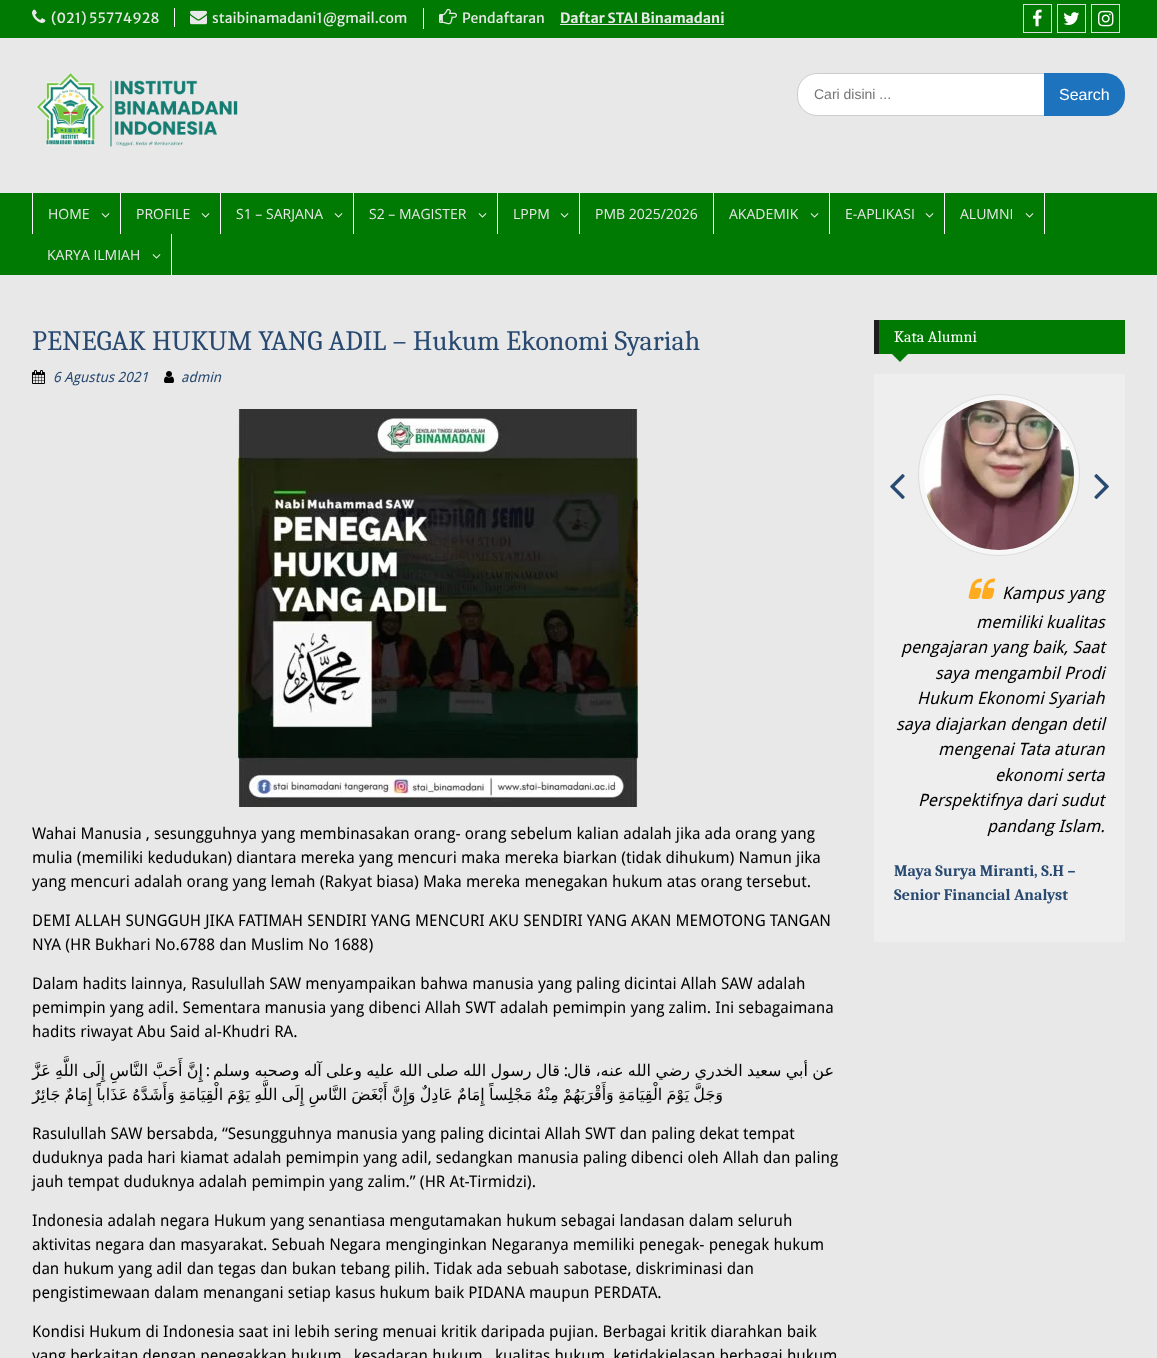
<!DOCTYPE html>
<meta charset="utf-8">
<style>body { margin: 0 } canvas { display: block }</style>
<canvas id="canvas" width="1157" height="1358"></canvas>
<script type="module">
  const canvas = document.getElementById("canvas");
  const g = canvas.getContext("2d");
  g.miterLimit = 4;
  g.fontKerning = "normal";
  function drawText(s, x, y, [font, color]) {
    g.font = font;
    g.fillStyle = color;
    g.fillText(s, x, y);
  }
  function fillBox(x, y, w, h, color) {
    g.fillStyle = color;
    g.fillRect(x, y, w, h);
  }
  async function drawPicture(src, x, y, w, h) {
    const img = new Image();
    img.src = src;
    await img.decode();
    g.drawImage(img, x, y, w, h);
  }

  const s1 = ["14px Merriweather Sans", "#E8E8E8"];
  const s2 = ["bold 14px Merriweather Sans", "#E8E8E8"];
  const s3 = ["14px Liberation Sans", "#757575"];
  const s4 = ["16px Liberation Sans", "#FFFFFF"];
  const s5 = ["14px Open Sans", "#E8E8E8"];
  const s6 = ["28px Caladea", "#294A70"];
  const s7 = ["italic 14px Droid Sans", "#294A70"];
  const s8 = ["16px Droid Sans", "#000000"];
  const s9 = ["16px DejaVu Sans", "#000000"];
  const s10 = ["16px Caladea", "#FFFFFF"];
  const s11 = ["italic 17px Droid Sans", "#000000"];
  const s12 = ["bold 16px Caladea", "#294A70"];

  fillBox(0, 0, 1157, 1358, "#007A02");
  await drawPicture("pic1.png", 32, 9, 14, 14);
  drawText("(021) 55774928", 51, 23, s1);
  fillBox(174, 8, 1, 19, "#FFFFFF");
  await drawPicture("pic2.png", 190, 10, 17, 15);
  drawText("staibinamadani1@gmail.com", 212, 23, s1);
  fillBox(423, 8, 1, 21, "#FFFFFF");
  await drawPicture("pic3.png", 439, 8, 18, 17);
  drawText("Pendaftaran", 462, 23, s1);
  drawText("Daftar STAI Binamadani", 560, 23, s2);
  fillBox(560, 24, 164, 1, "#E8E8E8");
  g.strokeStyle = "#DDDDDD";
  g.strokeRect(1023.5, 4.5, 28, 28);
  await drawPicture("pic4.png", 1032, 9, 10, 18);
  g.strokeRect(1057.5, 4.5, 28, 28);
  await drawPicture("pic5.png", 1063, 12, 17, 13);
  g.strokeRect(1091.5, 4.5, 28, 28);
  await drawPicture("pic6.png", 1098, 10, 16, 17);
  fillBox(0, 38, 1157, 155, "#E8E8E8");
  await drawPicture("pic7.png", 36, 73, 202, 74);
  g.fillStyle = "#FFFFFF";
  g.beginPath();
  g.roundRect(797.5, 73.5, 327, 42, 19.5);
  g.fill();
  g.strokeStyle = "#CCCCCC";
  g.stroke();
  drawText("Cari disini ...", 814, 99, s3);
  g.fillStyle = "#1E73BE";
  g.beginPath();
  g.roundRect(1044, 73, 81, 43, [0, 20, 20, 0]);
  g.fill();
  drawText("Search", 1059, 100, s4);
  fillBox(0, 275, 1157, 1083, "#E8E8E8");
  fillBox(120, 193, 1, 41, "#FFFFFF");
  fillBox(32, 193, 1, 41, "#FFFFFF");
  drawText("HOME", 48, 219, s5);
  await drawPicture("pic8.png", 101, 213, 9, 5);
  fillBox(220, 193, 1, 41, "#FFFFFF");
  drawText("PROFILE", 136, 219, s5);
  await drawPicture("pic8.png", 201, 213, 9, 5);
  fillBox(353, 193, 1, 41, "#FFFFFF");
  drawText("S1 – SARJANA", 236, 219, s5);
  await drawPicture("pic8.png", 334, 213, 9, 5);
  fillBox(497, 193, 1, 41, "#FFFFFF");
  drawText("S2 – MAGISTER", 369, 219, s5);
  await drawPicture("pic8.png", 478, 213, 9, 5);
  fillBox(579, 193, 1, 41, "#FFFFFF");
  drawText("LPPM", 513, 219, s5);
  await drawPicture("pic8.png", 560, 213, 9, 5);
  fillBox(713, 193, 1, 41, "#FFFFFF");
  drawText("PMB 2025/2026", 595, 219, s5);
  fillBox(829, 193, 1, 41, "#FFFFFF");
  drawText("AKADEMIK", 729, 219, s5);
  await drawPicture("pic8.png", 810, 213, 9, 5);
  fillBox(944, 193, 1, 41, "#FFFFFF");
  drawText("E-APLIKASI", 845, 219, s5);
  await drawPicture("pic8.png", 925, 213, 9, 5);
  fillBox(1044, 193, 1, 41, "#FFFFFF");
  drawText("ALUMNI", 960, 219, s5);
  await drawPicture("pic8.png", 1025, 213, 9, 5);
  fillBox(171, 234, 1, 41, "#FFFFFF");
  drawText("KARYA ILMIAH", 47, 260, s5);
  await drawPicture("pic8.png", 152, 254, 9, 5);
  drawText("PENEGAK HUKUM YANG ADIL – Hukum Ekonomi Syariah", 32, 350, s6);
  await drawPicture("pic9.png", 32, 370, 13, 14);
  drawText("6 Agustus 2021", 53, 382, s7);
  await drawPicture("pic10.png", 164, 371, 10, 12);
  drawText("admin", 181, 382, s7);
  await drawPicture("pic11.png", 238, 409, 400, 398);
  drawText("Wahai Manusia , sesungguhnya yang membinasakan orang- orang sebelum kalian adalah jika ada orang yang", 32, 839, s8);
  drawText("mulia (memiliki kedudukan) diantara mereka yang mencuri maka mereka biarkan (tidak dihukum) Namun jika", 32, 863, s8);
  drawText("yang mencuri adalah orang yang lemah (Rakyat biasa) Maka mereka menegakan hukum atas orang tersebut.", 32, 887, s8);
  drawText("DEMI ALLAH SUNGGUH JIKA FATIMAH SENDIRI YANG MENCURI AKU SENDIRI YANG AKAN MEMOTONG TANGAN", 32, 926, s8);
  drawText("NYA (HR Bukhari No.6788 dan Muslim No 1688)", 32, 950, s8);
  drawText("Dalam hadits lainnya, Rasulullah SAW menyampaikan bahwa manusia yang paling dicintai Allah SAW adalah", 32, 989, s8);
  drawText("pemimpin yang adil. Sementara manusia yang dibenci Allah SWT adalah pemimpin yang zalim. Ini sebagaimana", 32, 1013, s8);
  drawText("hadits riwayat Abu Said al-Khudri RA.", 32, 1037, s8);
  g.wordSpacing = "-0.75px";
  g.direction = "rtl";
  drawText("إِنَّ أَحَبَّ النَّاسِ إِلَى اللَّهِ عَزَّ", 203, 1076, s9);
  g.wordSpacing = "0px";
  drawText(":", 210, 1076, s8);
  g.wordSpacing = "-0.75px";
  drawText("قال رسول الله صلى الله عليه وعلى آله وصحبه وسلم", 560, 1076, s9);
  drawText("عن أبي سعيد الخدري رضي الله عنه، قال", 834, 1076, s9);
  g.wordSpacing = "0px";
  drawText(":", 568, 1076, s8);
  g.wordSpacing = "-0.9px";
  drawText("وَجَلَّ يَوْمَ الْقِيَامَةِ وَأَقْرَبَهُمْ مِنْهُ مَجْلِساً إِمَامٌ عَادِلٌ وَإِنَّ أَبْغَضَ النَّاسِ إِلَى اللَّهِ يَوْمَ الْقِيَامَةِ وَأَشَدَّهُ عَذَاباً إِمَامٌ جَائِرٌ", 723, 1100, s9);
  g.wordSpacing = "0px";
  g.direction = "ltr";
  drawText("Rasulullah SAW bersabda, “Sesungguhnya manusia yang paling dicintai Allah SWT dan paling dekat tempat", 32, 1139, s8);
  drawText("duduknya pada hari kiamat adalah pemimpin yang adil, sedangkan manusia paling dibenci oleh Allah dan paling", 32, 1163, s8);
  drawText("jauh tempat duduknya adalah pemimpin yang zalim.” (HR At-Tirmidzi).", 32, 1187, s8);
  drawText("Indonesia adalah negara Hukum yang senantiasa mengutamakan hukum sebagai landasan dalam seluruh", 32, 1226, s8);
  drawText("aktivitas negara dan masyarakat. Sebuah Negara menginginkan Negaranya memiliki penegak- penegak hukum", 32, 1250, s8);
  drawText("dan hukum yang adil dan tegas dan bukan tebang pilih. Tidak ada sebuah sabotase, diskriminasi dan", 32, 1274, s8);
  drawText("pengistimewaan dalam menangani setiap kasus hukum baik PIDANA maupun PERDATA.", 32, 1298, s8);
  drawText("Kondisi Hukum di Indonesia saat ini lebih sering menuai kritik daripada pujian. Berbagai kritik diarahkan baik", 32, 1337, s8);
  drawText("yang berkaitan dengan penegakkan hukum , kesadaran hukum , kualitas hukum, ketidakjelasan berbagai hukum", 32, 1361, s8);
  fillBox(879, 320, 246, 34, "#007A02");
  fillBox(874, 320, 5, 34, "#1D1D1D");
  drawText("Kata Alumni", 894, 342, s10);
  g.fillStyle = "#007A02";
  g.beginPath();
  g.moveTo(891, 353);
  g.lineTo(909, 353);
  g.lineTo(900, 362);
  g.closePath();
  g.fill();
  fillBox(874, 374, 251, 568, "#EEEEEE");
  await drawPicture("pic12.png", 890, 474, 15, 25);
  await drawPicture("pic13.png", 1094, 474, 15, 25);
  g.fillStyle = "#F7F7F7";
  g.beginPath();
  g.arc(999, 475, 80.5, 0, Math.PI * 2);
  g.fill();
  g.strokeStyle = "#DDDDDD";
  g.stroke();
  await drawPicture("pic14.png", 924, 400, 150, 150);
  await drawPicture("pic15.png", 968, 578, 28, 21);
  drawText("Kampus yang", 1002, 599, s11);
  drawText("memiliki kualitas", 976, 628, s11);
  drawText("pengajaran yang baik, Saat", 901, 653, s11);
  drawText("saya mengambil Prodi", 935, 679, s11);
  drawText("Hukum Ekonomi Syariah", 917, 704, s11);
  drawText("saya diajarkan dengan detil", 896, 730, s11);
  drawText("mengenai Tata aturan", 938, 755, s11);
  drawText("ekonomi serta", 995, 781, s11);
  drawText("Perspektifnya dari sudut", 918, 806, s11);
  drawText("pandang Islam.", 987, 832, s11);
  drawText("Maya Surya Miranti, S.H –", 894, 876, s12);
  drawText("Senior Financial Analyst", 894, 900, s12);
</script>
